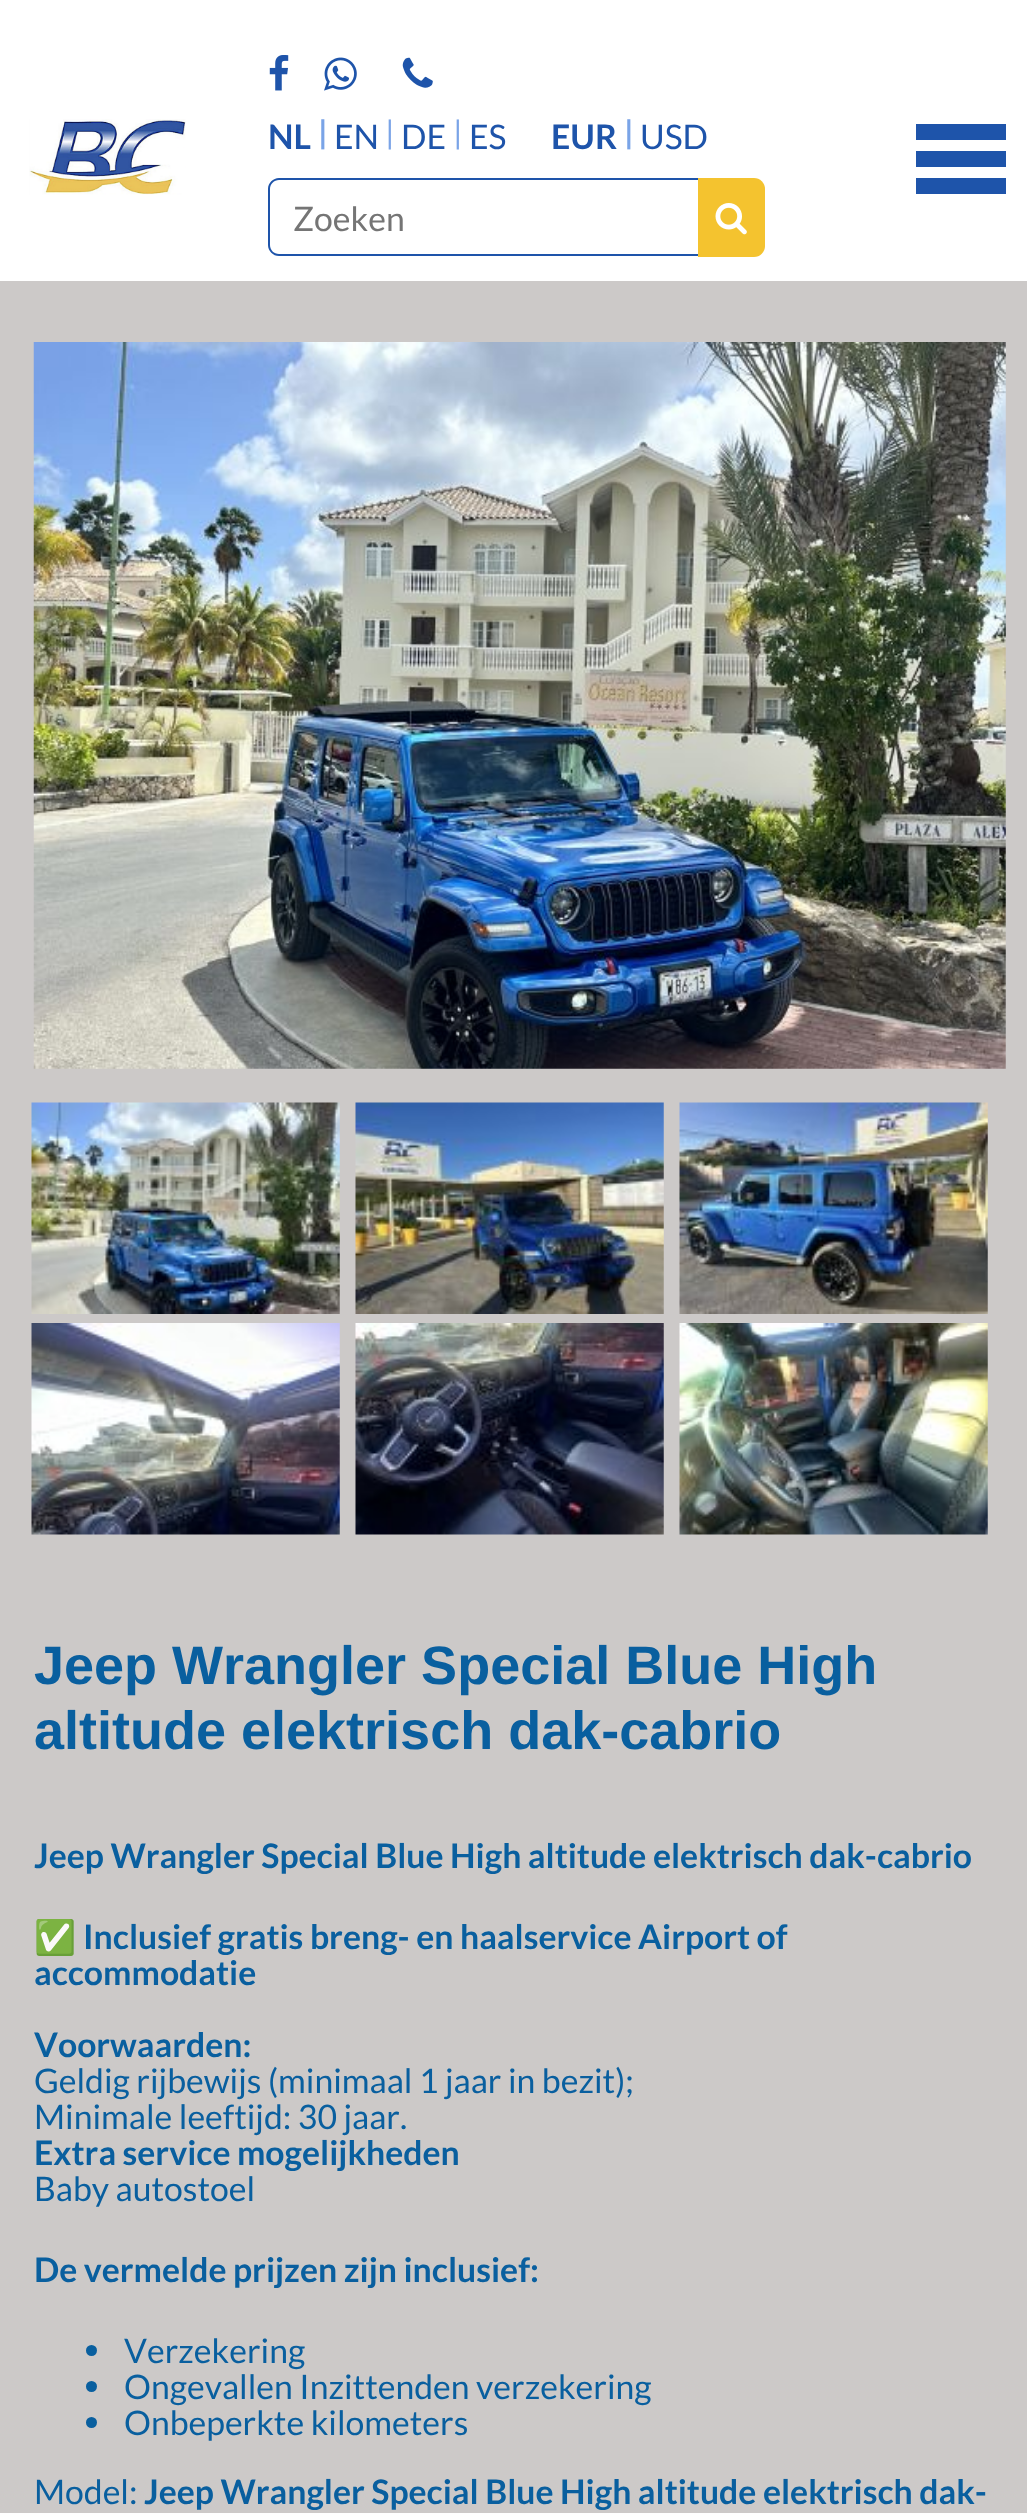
<!DOCTYPE html>
<meta charset="utf-8">
<style>body { margin: 0 } canvas { display: block }</style>
<canvas id="canvas" width="1027" height="2513"></canvas>
<script type="module">
  const canvas = document.getElementById("canvas");
  const g = canvas.getContext("2d");
  g.miterLimit = 4;
  g.fontKerning = "none";
  function drawText(s, x, y, [font, color]) {
    g.font = font;
    g.fillStyle = color;
    g.fillText(s, x, y);
  }
  function fillBox(x, y, w, h, color) {
    g.fillStyle = color;
    g.fillRect(x, y, w, h);
  }
  async function drawPicture(src, x, y, w, h) {
    const img = new Image();
    img.src = src;
    await img.decode();
    g.drawImage(img, x, y, w, h);
  }

  const s1 = ["bold 33.75px Lato", "#1E54AA"];
  const s2 = ["bold 32px Lato", "#7AA4E7"];
  const s3 = ["33.75px Lato", "#1E54AA"];
  const s4 = ["32px Lato", "#7AA4E7"];
  const s5 = ["33.75px Lato", "#757575"];
  const s6 = ["bold 54px Liberation Sans", "#095F9F"];
  const s7 = ["bold 33.75px Lato", "#095F9F"];
  const s8 = ["bold 33.75px Noto Color Emoji", "#095F9F"];
  const s9 = ["33.75px Lato", "#095F9F"];

  fillBox(0, 0, 1027, 2513, "#CCC9C8");
  fillBox(0, 0, 1027, 281, "#FFFFFF");
  await drawPicture("pic1.png", 29, 119, 157, 76);
  await drawPicture("pic2.png", 269, 55, 20, 36);
  await drawPicture("pic3.png", 324, 57, 33, 34);
  await drawPicture("pic4.png", 402, 57, 31, 31);
  drawText("NL", 268, 149, s1);
  drawText("|", 318, 144, s2);
  drawText("EN", 334, 149, s3);
  drawText("|", 385, 144, s4);
  drawText("DE", 401, 149, s3);
  drawText("|", 453, 144, s4);
  drawText("ES", 469, 149, s3);
  drawText("EUR", 551, 149, s1);
  drawText("|", 624, 144, s2);
  drawText("USD", 640, 149, s3);
  g.beginPath();
  g.moveTo(279, 178);
  g.lineTo(698, 178);
  g.lineTo(698, 256);
  g.lineTo(279, 256);
  g.bezierCurveTo(273, 256, 268, 251, 268, 245);
  g.lineTo(268, 189);
  g.bezierCurveTo(268, 183, 273, 178, 279, 178);
  g.closePath();
  g.moveTo(279, 180);
  g.lineTo(698, 180);
  g.lineTo(698, 254);
  g.lineTo(279, 254);
  g.bezierCurveTo(274, 254, 270, 250, 270, 245);
  g.lineTo(270, 189);
  g.bezierCurveTo(270, 184, 274, 180, 279, 180);
  g.closePath();
  g.fill("evenodd");
  drawText("Zoeken", 293, 231, s5);
  g.fillStyle = "#F4C32F";
  g.beginPath();
  g.roundRect(698, 178, 67, 79, [0, 11, 11, 0]);
  g.fill();
  await drawPicture("pic5.png", 715, 203, 32, 32);
  fillBox(916, 124, 90, 16, "#1E54AA");
  fillBox(916, 151, 90, 16, "#1E54AA");
  fillBox(916, 178, 90, 16, "#1E54AA");
  await drawPicture("pic6.png", 33, 342, 973, 727);
  await drawPicture("pic7.png", 31, 1102, 309, 212);
  await drawPicture("pic8.png", 355, 1102, 309, 212);
  await drawPicture("pic9.png", 679, 1102, 309, 212);
  await drawPicture("pic10.png", 31, 1323, 309, 212);
  await drawPicture("pic11.png", 355, 1323, 309, 212);
  await drawPicture("pic12.png", 679, 1323, 309, 212);
  drawText("Jeep Wrangler Special Blue High", 34, 1684, s6);
  drawText("altitude elektrisch dak-cabrio", 34, 1749, s6);
  drawText("Jeep Wrangler Special Blue High altitude elektrisch dak-cabrio", 34, 1868, s7);
  drawText("✅", 34, 1949, s8);
  drawText("Inclusief gratis breng- en haalservice Airport of", 83, 1949, s7);
  drawText("accommodatie", 34, 1985, s7);
  drawText("Voorwaarden:", 34, 2057, s7);
  drawText("Geldig rijbewijs (minimaal 1 jaar in bezit);", 34, 2093, s9);
  drawText("Minimale leeftijd: 30 jaar.", 34, 2129, s9);
  drawText("Extra service mogelijkheden", 34, 2165, s7);
  drawText("Baby autostoel", 34, 2201, s9);
  drawText("De vermelde prijzen zijn inclusief:", 34, 2282, s7);
  g.beginPath();
  g.arc(91.5, 2350.5, 5.5, 0, Math.PI * 2);
  g.fill();
  drawText("Verzekering", 124, 2363, s9);
  g.beginPath();
  g.arc(91.5, 2386.5, 5.5, 0, Math.PI * 2);
  g.fill();
  drawText("Ongevallen Inzittenden verzekering", 124, 2399, s9);
  g.beginPath();
  g.arc(91.5, 2422.5, 5.5, 0, Math.PI * 2);
  g.fill();
  drawText("Onbeperkte kilometers", 124, 2435, s9);
  drawText("Model:", 34, 2504, s9);
  drawText("Jeep Wrangler Special Blue High altitude elektrisch dak-", 144, 2504, s7);
</script>
